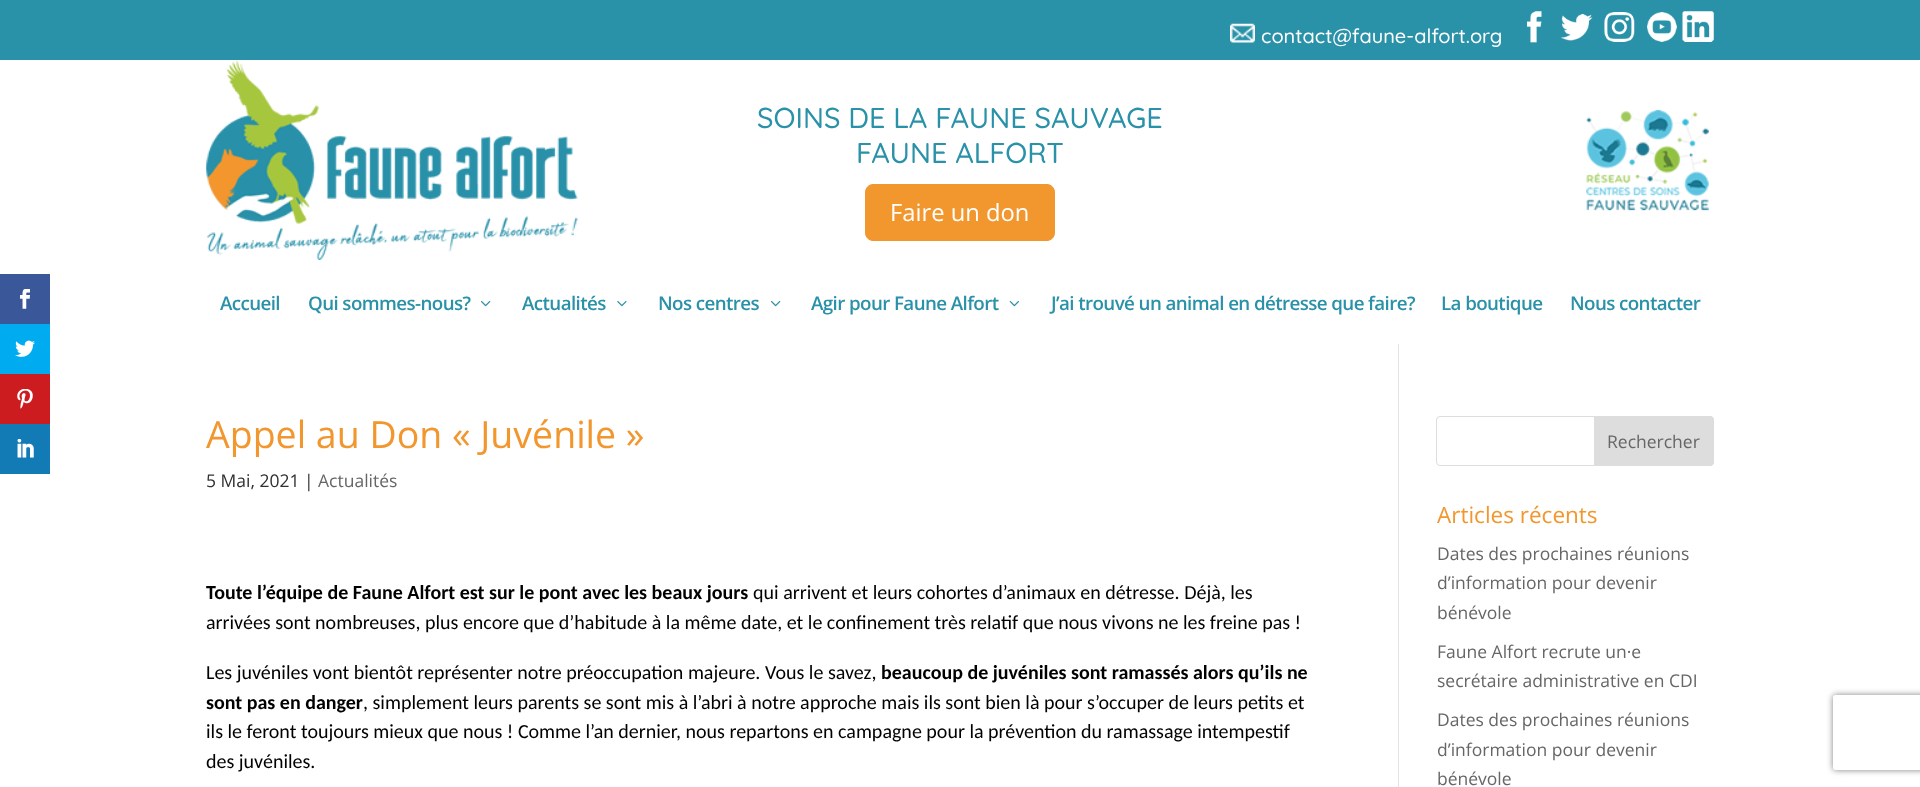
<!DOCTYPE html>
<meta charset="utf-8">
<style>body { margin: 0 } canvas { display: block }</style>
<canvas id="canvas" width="1920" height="787"></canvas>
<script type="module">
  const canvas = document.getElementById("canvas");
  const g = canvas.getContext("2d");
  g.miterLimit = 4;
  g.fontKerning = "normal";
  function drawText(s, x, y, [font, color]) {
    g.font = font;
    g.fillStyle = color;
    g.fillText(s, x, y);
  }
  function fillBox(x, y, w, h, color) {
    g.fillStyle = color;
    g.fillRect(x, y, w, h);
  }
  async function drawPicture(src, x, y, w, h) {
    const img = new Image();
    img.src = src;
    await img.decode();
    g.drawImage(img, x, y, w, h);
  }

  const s1 = ["500 20px Quicksand", "#FFFFFF"];
  const s2 = ["500 28.75px Quicksand", "#2991A8"];
  const s3 = ["23.75px Open Sans", "#FFFFFF"];
  const s4 = ["600 18.75px Open Sans", "#2991A8"];
  const s5 = ["37.5px Open Sans", "#F2962E"];
  const s6 = ["17.5px Open Sans", "#303030"];
  const s7 = ["17.5px Open Sans", "#666666"];
  const s8 = ["bold 20px Carlito", "#000000"];
  const s9 = ["20px Carlito", "#000000"];
  const s10 = ["22.5px Open Sans", "#F2962E"];

  fillBox(0, 0, 1920, 787, "#FFFFFF");
  fillBox(0, 274, 50, 50, "#3A579A");
  await drawPicture("pic1.png", 20, 289, 10, 20);
  fillBox(0, 324, 50, 50, "#00ABF0");
  await drawPicture("pic2.png", 15, 340, 20, 17);
  fillBox(0, 374, 50, 50, "#CD1C1F");
  await drawPicture("pic3.png", 17, 389, 16, 20);
  fillBox(0, 424, 50, 50, "#127BB6");
  await drawPicture("pic4.png", 17, 439, 17, 19);
  fillBox(0, 0, 1920, 60, "#2991A8");
  await drawPicture("pic5.png", 1230, 23, 25, 20);
  drawText("contact@faune-alfort.org", 1261, 43, s1);
  await drawPicture("pic6.png", 1527, 11, 15, 32);
  await drawPicture("pic7.png", 1561, 14, 32, 27);
  await drawPicture("pic8.png", 1604, 12, 31, 30);
  await drawPicture("pic9.png", 1647, 12, 30, 30);
  await drawPicture("pic10.png", 1682, 11, 32, 31);
  await drawPicture("pic11.png", 206, 60, 372, 200);
  drawText("SOINS DE LA FAUNE SAUVAGE", 757, 128, s2);
  drawText("FAUNE ALFORT", 856, 163, s2);
  g.fillStyle = "#F2962E";
  g.beginPath();
  g.roundRect(865.5, 184.5, 189, 56, 7.5);
  g.fill();
  g.strokeStyle = "#F2962E";
  g.stroke();
  drawText("Faire un don", 890, 221, s3);
  await drawPicture("pic12.png", 1586, 109, 123, 102);
  g.letterSpacing = "-0.6px";
  drawText("Accueil", 220, 310, s4);
  drawText("Qui sommes-nous?", 308, 310, s4);
  await drawPicture("pic13.png", 481, 301, 10, 6);
  drawText("Actualités", 522, 310, s4);
  await drawPicture("pic14.png", 617, 301, 10, 6);
  drawText("Nos centres", 658, 310, s4);
  await drawPicture("pic13.png", 771, 301, 10, 6);
  drawText("Agir pour Faune Alfort", 811, 310, s4);
  await drawPicture("pic15.png", 1009, 301, 10, 6);
  drawText("J’ai trouvé un animal en détresse que faire?", 1051, 310, s4);
  drawText("La boutique", 1441, 310, s4);
  drawText("Nous contacter", 1570, 310, s4);
  fillBox(1398, 344, 1, 443, "#E2E2E2");
  g.letterSpacing = "0px";
  drawText("Appel au Don « Juvénile »", 206, 448, s5);
  drawText("5 Mai, 2021 |", 206, 487, s6);
  drawText("Actualités", 318, 487, s7);
  drawText("Toute l’équipe de Faune Alfort est sur le pont avec les beaux jours", 206, 599, s8);
  drawText("qui arrivent et leurs cohortes d’animaux en détresse. Déjà, les", 753, 599, s9);
  drawText("arrivées sont nombreuses, plus encore que d’habitude à la même date, et le confinement très relatif que nous vivons ne les freine pas !", 206, 629, s9);
  drawText("Les juvéniles vont bientôt représenter notre préoccupation majeure. Vous le savez,", 206, 679, s9);
  drawText("beaucoup de juvéniles sont ramassés alors qu’ils ne", 881, 679, s8);
  drawText("sont pas en danger", 206, 709, s8);
  drawText(", simplement leurs parents se sont mis à l’abri à notre approche mais ils sont bien là pour s’occuper de leurs petits et", 363, 709, s9);
  drawText("ils le feront toujours mieux que nous ! Comme l’an dernier, nous repartons en campagne pour la prévention du ramassage intempestif", 206, 738, s9);
  drawText("des juvéniles.", 206, 768, s9);
  g.beginPath();
  g.roundRect(1436.5, 416.5, 277, 49, 3.5);
  g.strokeStyle = "#DDDDDD";
  g.stroke();
  g.fillStyle = "#DDDDDD";
  g.beginPath();
  g.roundRect(1594.5, 416.5, 119, 49, [0, 3.5, 3.5, 0]);
  g.fill();
  g.stroke();
  drawText("Rechercher", 1607, 448, s7);
  drawText("Articles récents", 1437, 523, s10);
  drawText("Dates des prochaines réunions", 1437, 560, s7);
  drawText("d’information pour devenir", 1437, 589, s7);
  drawText("bénévole", 1437, 619, s7);
  drawText("Faune Alfort recrute un·e", 1437, 658, s7);
  drawText("secrétaire administrative en CDI", 1437, 687, s7);
  drawText("Dates des prochaines réunions", 1437, 726, s7);
  drawText("d’information pour devenir", 1437, 756, s7);
  drawText("bénévole", 1437, 785, s7);
  g.save();
  g.beginPath();
  g.moveTo(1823, 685);
  g.lineTo(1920, 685);
  g.lineTo(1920, 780);
  g.lineTo(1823, 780);
  g.closePath();
  g.moveTo(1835.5, 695);
  g.lineTo(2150.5, 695);
  g.bezierCurveTo(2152, 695, 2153, 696, 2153, 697.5);
  g.lineTo(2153, 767.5);
  g.bezierCurveTo(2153, 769, 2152, 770, 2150.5, 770);
  g.lineTo(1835.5, 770);
  g.bezierCurveTo(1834, 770, 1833, 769, 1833, 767.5);
  g.lineTo(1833, 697.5);
  g.bezierCurveTo(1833, 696, 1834, 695, 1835.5, 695);
  g.closePath();
  g.clip("evenodd");
  g.fillStyle = "#808080";
  g.filter = "blur(3px)";
  g.beginPath();
  g.roundRect(1833, 695, 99, 75, 2.5);
  g.fill();
  g.filter = "none";
  g.restore();
</script>
